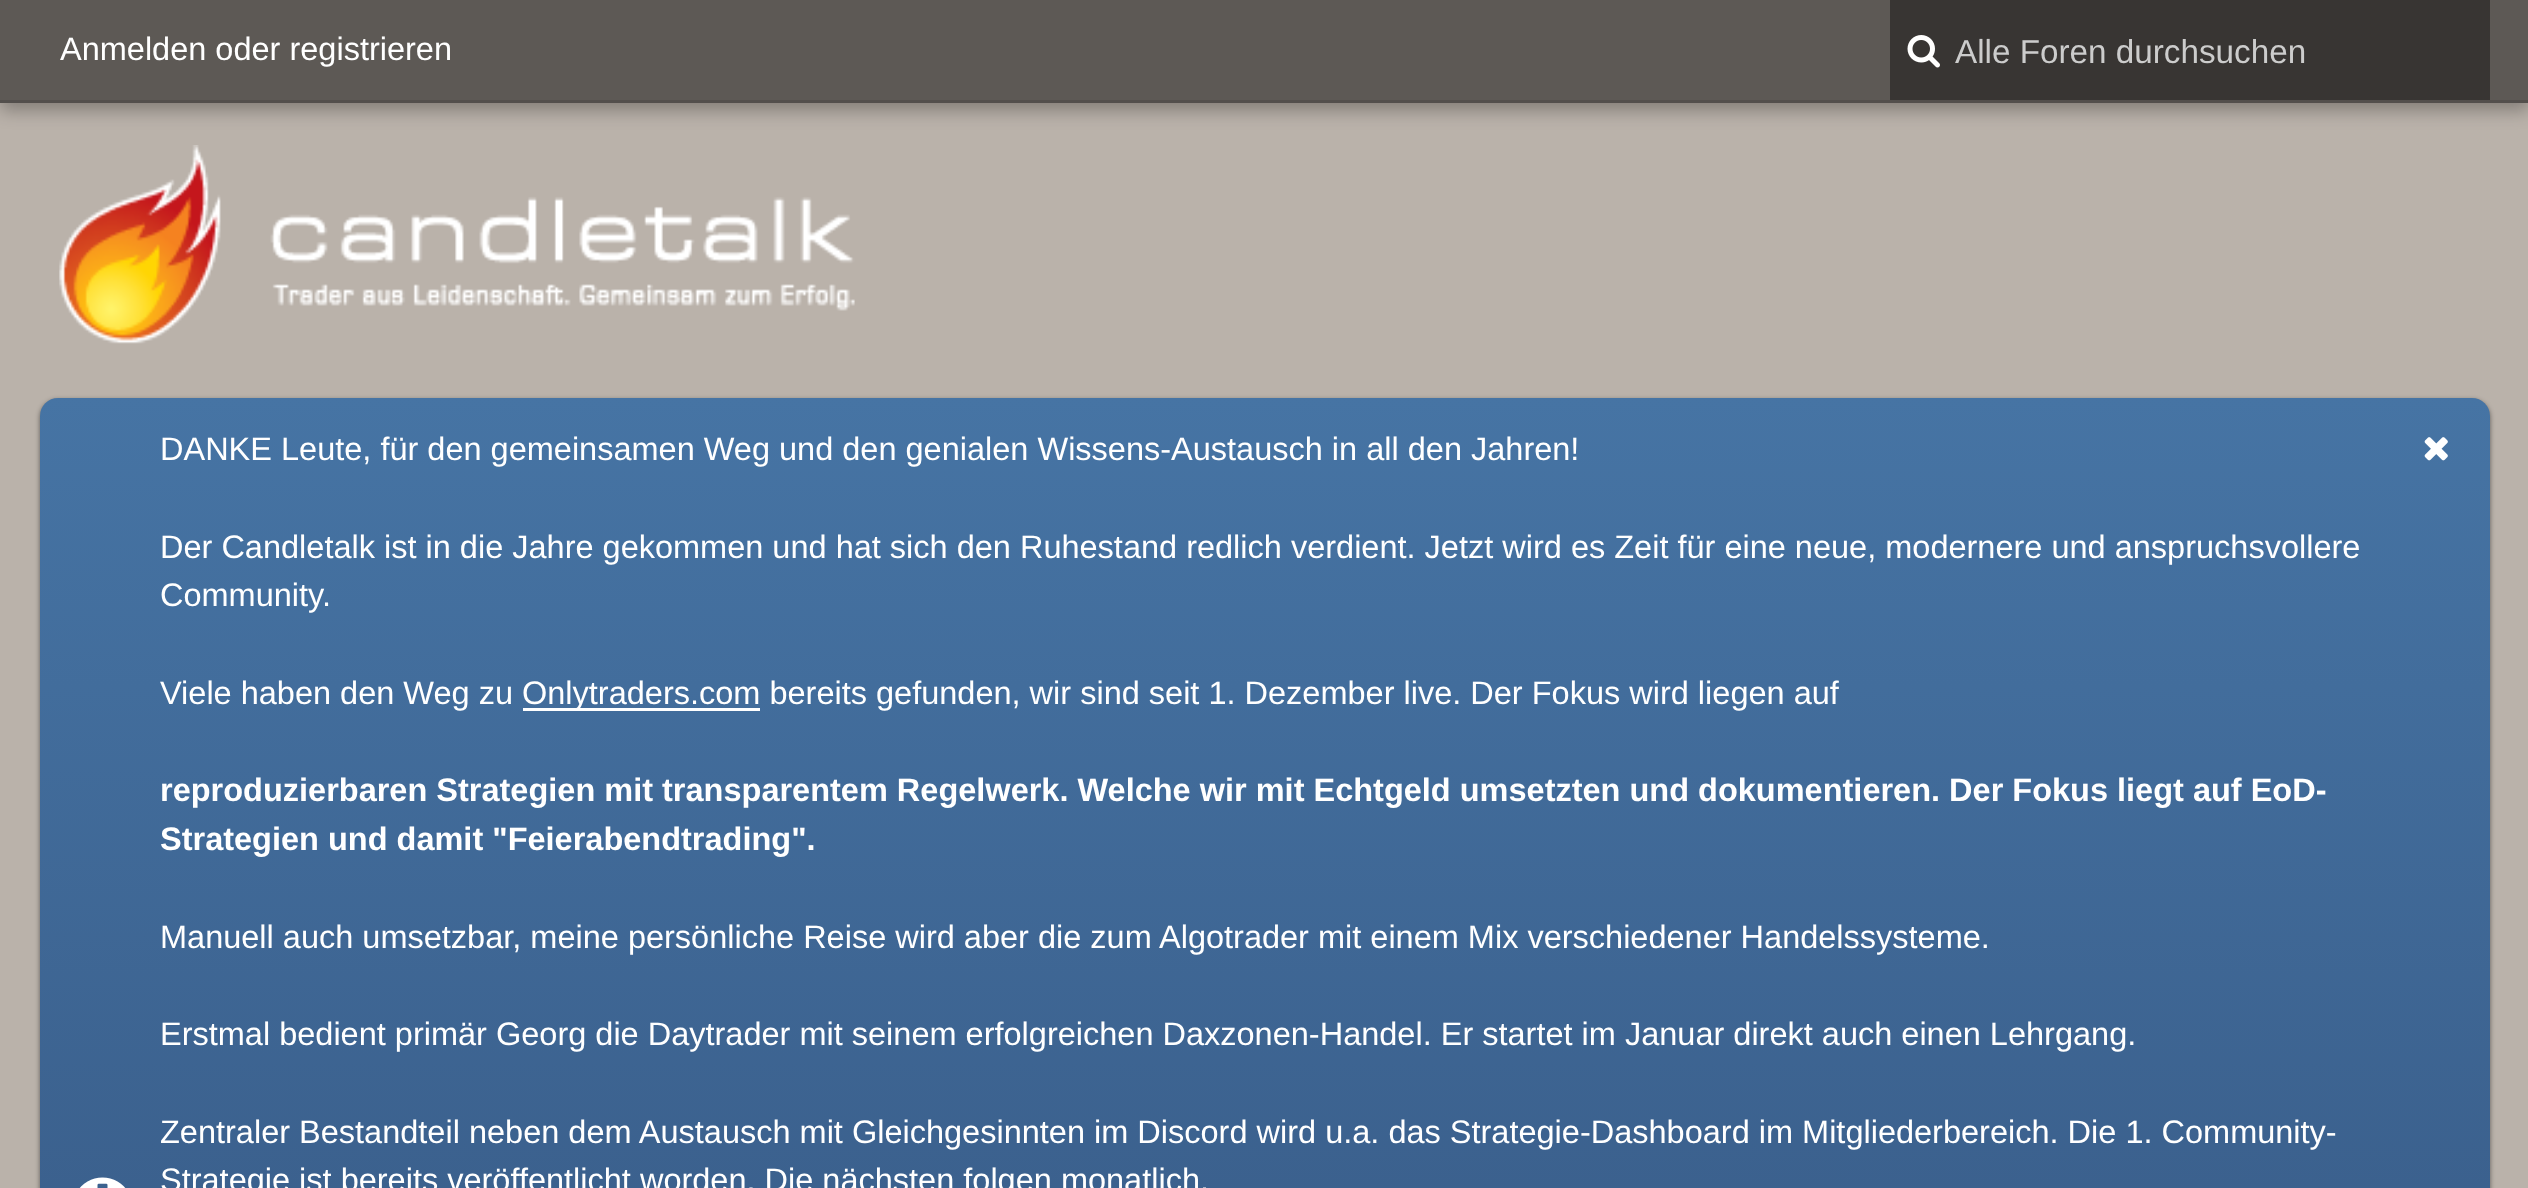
<!DOCTYPE html>
<meta charset="utf-8">
<style>body { margin: 0 } canvas { display: block }</style>
<canvas id="canvas" width="2528" height="1188"></canvas>
<script type="module">
  const canvas = document.getElementById("canvas");
  const g = canvas.getContext("2d");
  g.miterLimit = 4;
  g.fontKerning = "normal";
  function drawText(s, x, y, [font, color]) {
    g.font = font;
    g.fillStyle = color;
    g.fillText(s, x, y);
  }
  function fillBox(x, y, w, h, color) {
    g.fillStyle = color;
    g.fillRect(x, y, w, h);
  }
  async function drawPicture(src, x, y, w, h) {
    const img = new Image();
    img.src = src;
    await img.decode();
    g.drawImage(img, x, y, w, h);
  }
  let gradient;

  const s1 = ["32.5px Liberation Sans", "#FFFFFF"];
  const s2 = ["33.25px Liberation Sans", "#CCCCCC"];
  const s3 = ["bold 32.5px Liberation Sans", "#FFFFFF"];

  fillBox(0, 0, 2528, 1188, "#BAB2AA");
  g.save();
  g.beginPath();
  g.moveTo(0, 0);
  g.lineTo(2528, 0);
  g.lineTo(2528, 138);
  g.lineTo(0, 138);
  g.closePath();
  g.moveTo(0, 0);
  g.lineTo(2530, 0);
  g.lineTo(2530, 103);
  g.lineTo(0, 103);
  g.closePath();
  g.clip("evenodd");
  g.fillStyle = "rgba(0, 0, 0, 0.3)";
  g.filter = "blur(9px)";
  g.beginPath();
  g.rect(0, 8, 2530, 102);
  g.fill();
  g.filter = "none";
  g.restore();
  fillBox(0, 0, 2528, 103, "rgba(0, 0, 0, 0.5)");
  fillBox(0, 100, 2528, 3, "rgba(0, 0, 0, 0.1)");
  drawText("Anmelden oder registrieren", 60, 60, s1);
  fillBox(1890, 0, 600, 100, "#383533");
  await drawPicture("pic1.png", 1907, 35, 33, 33);
  drawText("Alle Foren durchsuchen", 1955, 63, s2);
  await drawPicture("pic2.png", 59, 145, 796, 199);
  g.fillStyle = "rgba(0, 0, 0, 0.5)";
  g.filter = "blur(2.5px)";
  g.beginPath();
  g.roundRect(40, 400, 2450, 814, 18);
  g.fill();
  g.filter = "none";
  gradient = g.createLinearGradient(1265, 397, 1265, 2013);
  gradient.addColorStop(0, "#4674A4");
  gradient.addColorStop(1, "#304D77");
  g.fillStyle = gradient;
  g.beginPath();
  g.roundRect(40, 398, 2450, 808, 18);
  g.fill();
  drawText("DANKE Leute, für den gemeinsamen Weg und den genialen Wissens-Austausch in all den Jahren!", 160, 460, s1);
  await drawPicture("pic3.png", 2424, 437, 24, 24);
  drawText("Der Candletalk ist in die Jahre gekommen und hat sich den Ruhestand redlich verdient. Jetzt wird es Zeit für eine neue, modernere und anspruchsvollere", 160, 558, s1);
  drawText("Community.", 160, 606, s1);
  drawText("Viele haben den Weg zu", 160, 704, s1);
  fillBox(523, 708, 237, 3, "#FFFFFF");
  drawText("Onlytraders.com bereits gefunden, wir sind seit 1. Dezember live. Der Fokus wird liegen auf", 522, 704, s1);
  drawText("reproduzierbaren Strategien mit transparentem Regelwerk. Welche wir mit Echtgeld umsetzten und dokumentieren. Der Fokus liegt auf EoD-", 160, 801, s3);
  drawText("Strategien und damit \"Feierabendtrading\".", 160, 850, s3);
  drawText("Manuell auch umsetzbar, meine persönliche Reise wird aber die zum Algotrader mit einem Mix verschiedener Handelssysteme.", 160, 948, s1);
  drawText("Erstmal bedient primär Georg die Daytrader mit seinem erfolgreichen Daxzonen-Handel. Er startet im Januar direkt auch einen Lehrgang.", 160, 1045, s1);
  await drawPicture("pic4.png", 79, 1177, 47, 11);
  drawText("Zentraler Bestandteil neben dem Austausch mit Gleichgesinnten im Discord wird u.a. das Strategie-Dashboard im Mitgliederbereich. Die 1. Community-", 160, 1143, s1);
  drawText("Strategie ist bereits veröffentlicht worden. Die nächsten folgen monatlich.", 160, 1191, s1);
</script>
